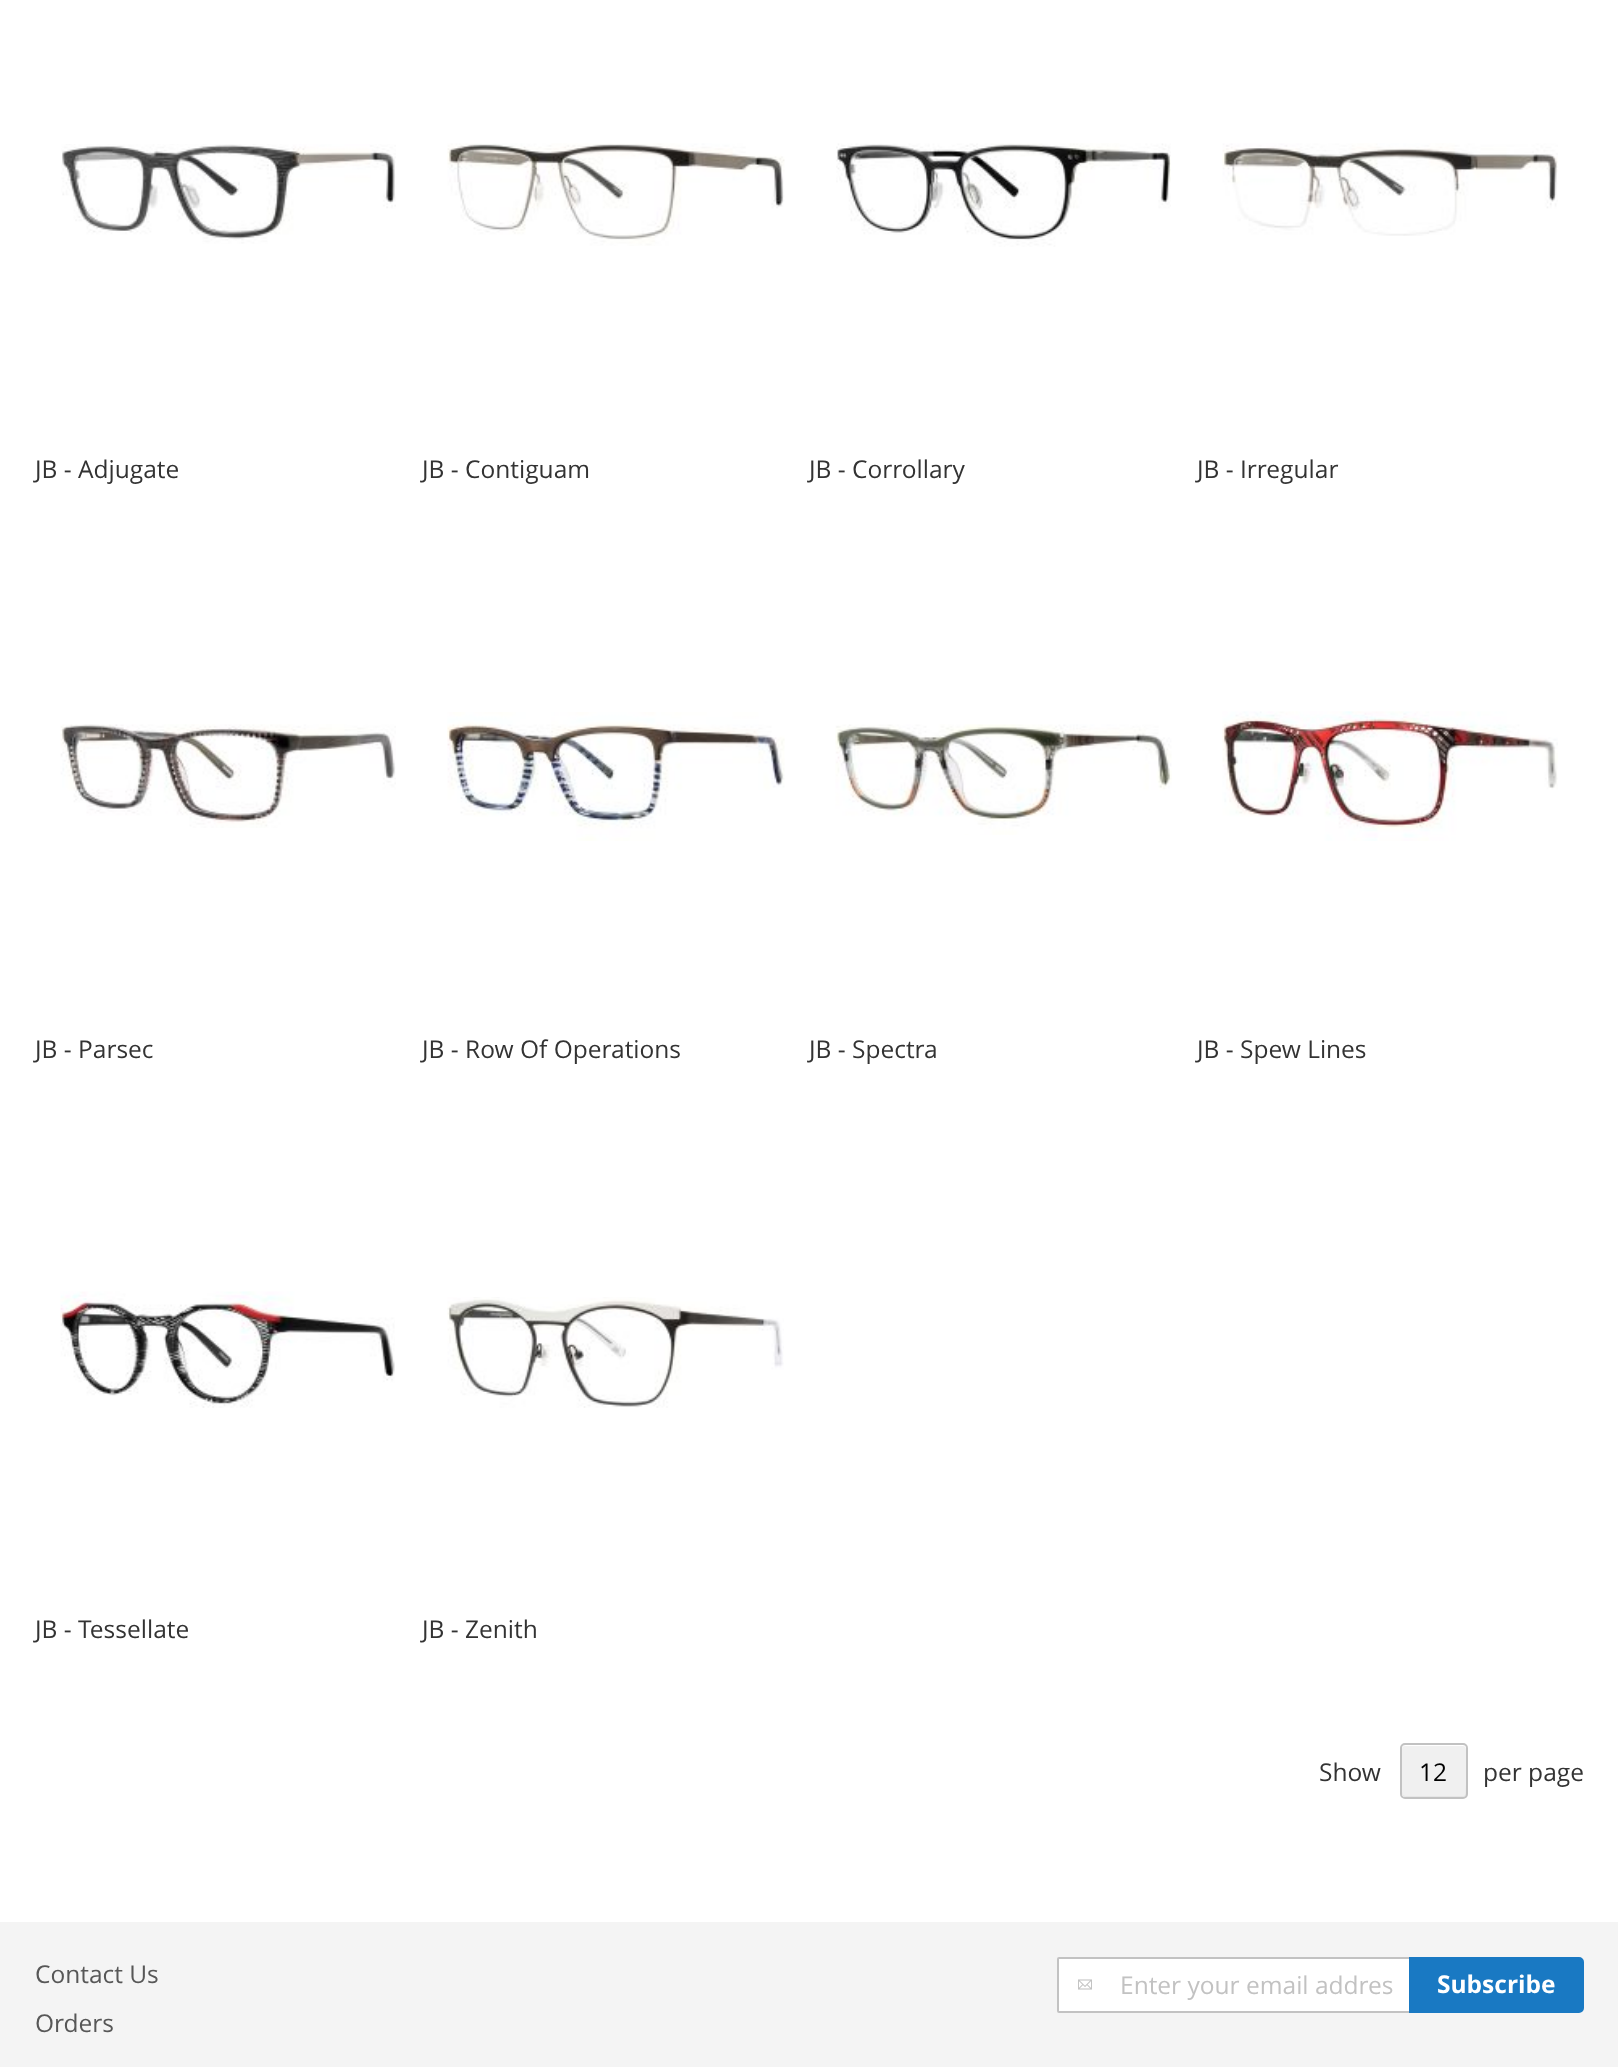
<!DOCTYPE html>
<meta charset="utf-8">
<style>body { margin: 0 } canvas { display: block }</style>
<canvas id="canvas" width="1618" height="2067"></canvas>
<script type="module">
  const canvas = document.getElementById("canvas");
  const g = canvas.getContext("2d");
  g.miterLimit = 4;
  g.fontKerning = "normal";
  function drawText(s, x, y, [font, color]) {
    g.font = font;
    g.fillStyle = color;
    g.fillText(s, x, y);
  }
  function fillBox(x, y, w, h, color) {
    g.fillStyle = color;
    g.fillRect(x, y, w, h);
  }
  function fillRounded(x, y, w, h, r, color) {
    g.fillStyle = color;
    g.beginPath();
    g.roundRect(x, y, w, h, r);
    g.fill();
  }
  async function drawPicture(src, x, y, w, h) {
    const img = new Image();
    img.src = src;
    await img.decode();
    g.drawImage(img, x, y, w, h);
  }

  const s1 = ["24.5px Open Sans", "#333333"];
  const s2 = ["24.5px Open Sans", "#000000"];
  const s3 = ["24.5px Open Sans", "#575757"];
  const s4 = ["24.5px Open Sans", "#C2C2C2"];
  const s5 = ["bold 24.5px Open Sans", "#FFFFFF"];

  fillBox(0, 0, 1618, 2067, "#FFFFFF");
  await drawPicture("pic1.png", 61, 144, 335, 100);
  drawText("JB - Adjugate", 35, 478, s1);
  await drawPicture("pic2.png", 447, 143, 338, 103);
  drawText("JB - Contiguam", 422, 478, s1);
  await drawPicture("pic3.png", 836, 143, 335, 104);
  drawText("JB - Corrollary", 809, 478, s1);
  await drawPicture("pic4.png", 1222, 143, 336, 93);
  drawText("JB - Irregular", 1197, 478, s1);
  await drawPicture("pic5.png", 60, 724, 336, 104);
  drawText("JB - Parsec", 35, 1058, s1);
  await drawPicture("pic6.png", 447, 712, 338, 129);
  drawText("JB - Row Of Operations", 422, 1058, s1);
  await drawPicture("pic7.png", 835, 724, 337, 111);
  drawText("JB - Spectra", 809, 1058, s1);
  await drawPicture("pic8.png", 1222, 711, 336, 130);
  drawText("JB - Spew Lines", 1197, 1058, s1);
  await drawPicture("pic9.png", 60, 1291, 335, 117);
  drawText("JB - Tessellate", 35, 1638, s1);
  await drawPicture("pic10.png", 447, 1297, 337, 111);
  drawText("JB - Zenith", 422, 1638, s1);
  drawText("Show", 1319, 1781, s1);
  fillRounded(1402, 1745, 65, 52, 4, "#F0F0F0");
  g.fillStyle = "rgba(209, 209, 209, 0.3)";
  g.beginPath();
  g.moveTo(1402, 1792);
  g.lineTo(1402, 1793);
  g.bezierCurveTo(1402, 1795, 1404, 1797, 1406, 1797);
  g.lineTo(1463, 1797);
  g.bezierCurveTo(1465, 1797, 1467, 1795, 1467, 1793);
  g.lineTo(1467, 1749);
  g.bezierCurveTo(1467, 1748, 1467, 1747, 1466, 1746);
  g.bezierCurveTo(1466, 1753, 1467, 1792, 1465, 1795);
  g.lineTo(1464, 1796);
  g.lineTo(1405, 1796);
  g.lineTo(1403, 1795);
  g.closePath();
  g.fill();
  g.fillStyle = "#FFFFFF";
  g.beginPath();
  g.moveTo(1405, 1746);
  g.lineTo(1463, 1746);
  g.bezierCurveTo(1465, 1746, 1466, 1748, 1466, 1750);
  g.lineTo(1466, 1796);
  g.bezierCurveTo(1467, 1795, 1467, 1794, 1467, 1793);
  g.lineTo(1467, 1749);
  g.bezierCurveTo(1467, 1747, 1465, 1745, 1463, 1745);
  g.lineTo(1406, 1745);
  g.bezierCurveTo(1404, 1745, 1402, 1747, 1402, 1749);
  g.lineTo(1402, 1750);
  g.bezierCurveTo(1402, 1748, 1403, 1746, 1405, 1746);
  g.closePath();
  g.fill();
  g.beginPath();
  g.roundRect(1401, 1744, 66, 54, 4);
  g.strokeStyle = "#C2C2C2";
  g.lineWidth = 2;
  g.stroke();
  drawText("12", 1419, 1781, s2);
  drawText("per page", 1483, 1781, s1);
  fillBox(0, 1922, 1618, 145, "#F4F4F4");
  drawText("Contact Us", 35, 1983, s3);
  drawText("Orders", 35, 2032, s3);
  g.fillStyle = "#FFFFFF";
  g.beginPath();
  g.roundRect(1058, 1958, 352, 54, 1);
  g.fill();
  g.stroke();
  await drawPicture("pic11.png", 1078, 1979, 14, 11);
  drawText("Enter your email addres", 1120, 1994, s4);
  g.fillStyle = "#1979C3";
  g.beginPath();
  g.roundRect(1410, 1958, 173, 54, [0, 4, 4, 0]);
  g.fill();
  g.strokeStyle = "#1979C3";
  g.stroke();
  drawText("Subscribe", 1437, 1993, s5);
</script>
